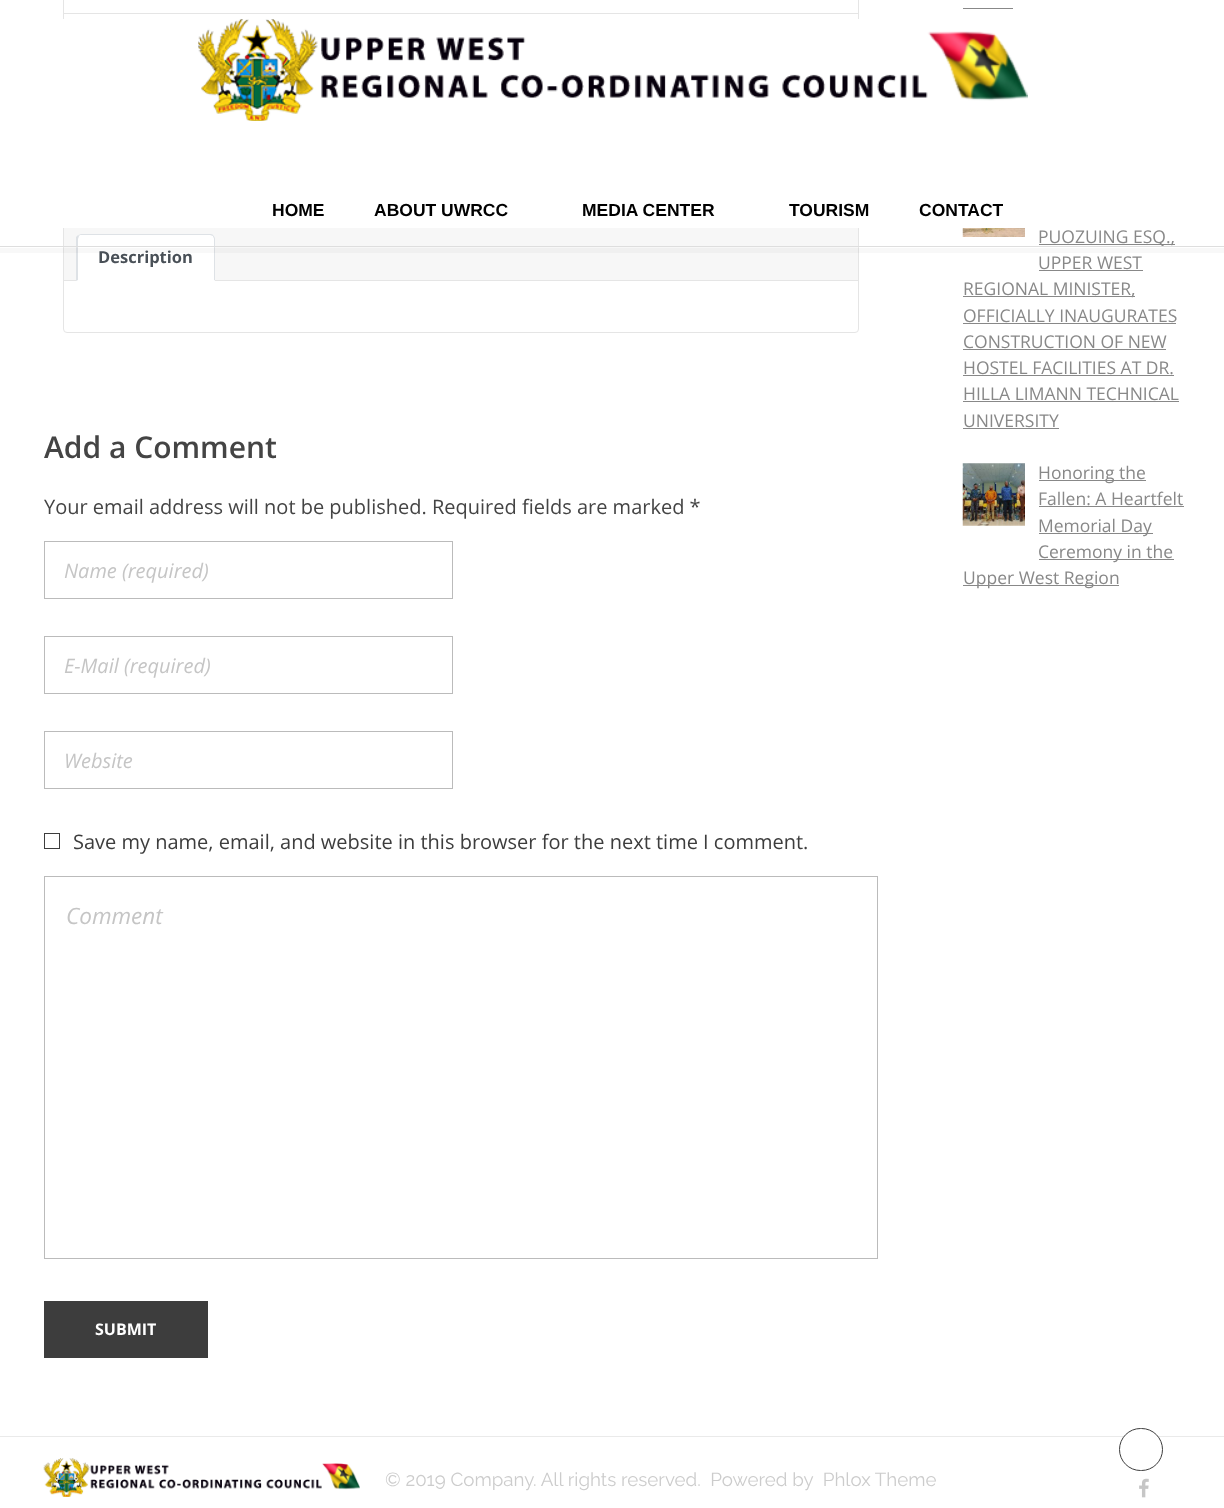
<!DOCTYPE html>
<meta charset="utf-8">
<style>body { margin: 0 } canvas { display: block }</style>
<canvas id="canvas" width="1224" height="1508"></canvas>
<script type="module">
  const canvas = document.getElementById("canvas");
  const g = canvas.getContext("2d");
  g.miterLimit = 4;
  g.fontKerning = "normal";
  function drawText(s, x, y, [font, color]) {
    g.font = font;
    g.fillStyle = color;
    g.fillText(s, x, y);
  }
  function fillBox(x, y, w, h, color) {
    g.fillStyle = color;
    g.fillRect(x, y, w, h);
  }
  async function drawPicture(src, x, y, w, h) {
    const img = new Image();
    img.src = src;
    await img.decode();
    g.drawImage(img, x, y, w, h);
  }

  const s1 = ["bold 17.5px Liberation Sans", "#000000"];
  const s2 = ["bold 16.5px Open Sans", "#495057"];
  const s3 = ["600 30px Open Sans", "#444444"];
  const s4 = ["20px Open Sans", "#444444"];
  const s5 = ["italic 20px Open Sans", "#C5C5C5"];
  const s6 = ["20px Open Sans", "#3D3D3D"];
  const s7 = ["italic 22.5px Open Sans", "#C5C5C5"];
  const s8 = ["bold 16px Open Sans", "#FFFFFF"];
  const s9 = ["17.5px Open Sans", "#888888"];
  const s10 = ["18.75px Raleway", "#CCCCCC"];

  fillBox(0, 0, 1224, 1508, "#FFFFFF");
  g.beginPath();
  g.roundRect(63.5, 218.5, 795, 114, 3.5);
  g.strokeStyle = "#E5E5E5";
  g.stroke();
  fillBox(64, 228, 794, 52, "rgba(0, 0, 0, 0.03)");
  fillBox(64, 280, 794, 1, "#E5E5E5");
  g.fillStyle = "#FFFFFF";
  g.beginPath();
  g.roundRect(76, 234, 139, 47, [5, 5, 0, 0]);
  g.fill();
  g.fillStyle = "#DEE2E6";
  g.beginPath();
  g.moveTo(213, 235);
  g.bezierCurveTo(214, 236, 215, 237, 215, 239);
  g.lineTo(215, 281);
  g.lineTo(214, 280);
  g.lineTo(214, 239);
  g.bezierCurveTo(214, 238, 213, 237, 213, 236);
  g.closePath();
  g.fill();
  g.beginPath();
  g.moveTo(81, 234);
  g.lineTo(78, 235);
  g.lineTo(79, 236);
  g.lineTo(80, 235);
  g.lineTo(210, 235);
  g.lineTo(213, 236);
  g.lineTo(213, 235);
  g.bezierCurveTo(213, 234, 211, 234, 210, 234);
  g.closePath();
  g.fill();
  g.fillStyle = "#FFFFFF";
  g.beginPath();
  g.moveTo(215, 281);
  g.lineTo(76, 281);
  g.lineTo(78, 280);
  g.lineTo(214, 280);
  g.closePath();
  g.fill();
  g.fillStyle = "#DEE2E6";
  g.beginPath();
  g.moveTo(76, 237);
  g.lineTo(78, 235);
  g.lineTo(79, 236);
  g.lineTo(78, 239);
  g.lineTo(78, 280);
  g.lineTo(76, 281);
  g.closePath();
  g.fill();
  fillBox(0, 248, 1224, 5, "rgba(34, 34, 34, 0.03)");
  fillBox(0, 246, 1224, 1, "#DEDEDE");
  g.strokeRect(63.5, -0.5, 795, 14);
  g.strokeRect(63.5, 13.5, 795, 69);
  fillBox(63, 19, 796, 209, "#FFFFFF");
  await drawPicture("pic1.png", 198, 19, 830, 102);
  drawText("HOME", 272, 216, s1);
  drawText("ABOUT UWRCC", 374, 216, s1);
  drawText("MEDIA CENTER", 582, 216, s1);
  drawText("TOURISM", 789, 216, s1);
  drawText("CONTACT", 919, 216, s1);
  drawText("Description", 98, 263, s2);
  drawText("Add a Comment", 44, 458, s3);
  drawText("Your email address will not be published. Required fields are marked *", 44, 514, s4);
  g.strokeStyle = "#BBBBBB";
  g.strokeRect(44.5, 541.5, 408, 57);
  drawText("Name (required)", 64, 578, s5);
  g.strokeRect(44.5, 636.5, 408, 57);
  drawText("E-Mail (required)", 64, 673, s5);
  g.strokeRect(44.5, 731.5, 408, 57);
  drawText("Website", 64, 768, s5);
  g.strokeStyle = "#3D3D3D";
  g.strokeRect(44.5, 833.5, 15, 15);
  drawText("Save my name, email, and website in this browser for the next time I comment.", 73, 849, s6);
  g.strokeStyle = "#BBBBBB";
  g.strokeRect(44.5, 876.5, 833, 382);
  drawText("Comment", 66, 924, s7);
  fillBox(44, 1301, 164, 57, "#3D3D3D");
  drawText("SUBMIT", 95, 1335, s8);
  fillBox(963, 8, 50, 1, "#888888");
  await drawPicture("pic2.png", 962, 228, 63, 9);
  fillBox(1039, 244, 136, 1, "#888888");
  drawText("PUOZUING ESQ.,", 1038, 243, s9);
  drawText("UPPER WEST", 1038, 269, s9);
  fillBox(1039, 270, 104, 1, "#888888");
  fillBox(963, 296, 172, 1, "#888888");
  drawText("REGIONAL MINISTER,", 963, 295, s9);
  drawText("OFFICIALLY INAUGURATES", 963, 322, s9);
  fillBox(963, 323, 213, 1, "#888888");
  drawText("CONSTRUCTION OF NEW", 963, 348, s9);
  fillBox(963, 349, 203, 1, "#888888");
  drawText("HOSTEL FACILITIES AT DR.", 963, 374, s9);
  fillBox(963, 375, 211, 1, "#888888");
  drawText("HILLA LIMANN TECHNICAL", 963, 400, s9);
  fillBox(963, 401, 216, 1, "#888888");
  drawText("UNIVERSITY", 963, 427, s9);
  fillBox(963, 428, 96, 1, "#888888");
  await drawPicture("pic3.png", 962, 463, 63, 63);
  fillBox(1039, 480, 107, 1, "#888888");
  drawText("Honoring the", 1038, 479, s9);
  drawText("Fallen: A Heartfelt", 1038, 505, s9);
  fillBox(1039, 506, 145, 1, "#888888");
  fillBox(1039, 533, 114, 1, "#888888");
  drawText("Memorial Day", 1038, 532, s9);
  fillBox(1039, 559, 135, 1, "#888888");
  drawText("Ceremony in the", 1038, 558, s9);
  fillBox(963, 585, 156, 1, "#888888");
  drawText("Upper West Region", 963, 584, s9);
  fillBox(0, 1436, 1224, 1, "#EAEAEA");
  await drawPicture("pic4.png", 43, 1458, 317, 39);
  drawText("© 2019 Company. All rights reserved.  Powered by  Phlox Theme", 385, 1486, s10);
  await drawPicture("pic5.png", 1139, 1478, 10, 20);
  g.fillStyle = "#FFFFFF";
  g.beginPath();
  g.roundRect(1119.5, 1428.5, 43, 42, 21);
  g.fill();
  g.strokeStyle = "#3D3D3D";
  g.stroke();
</script>
